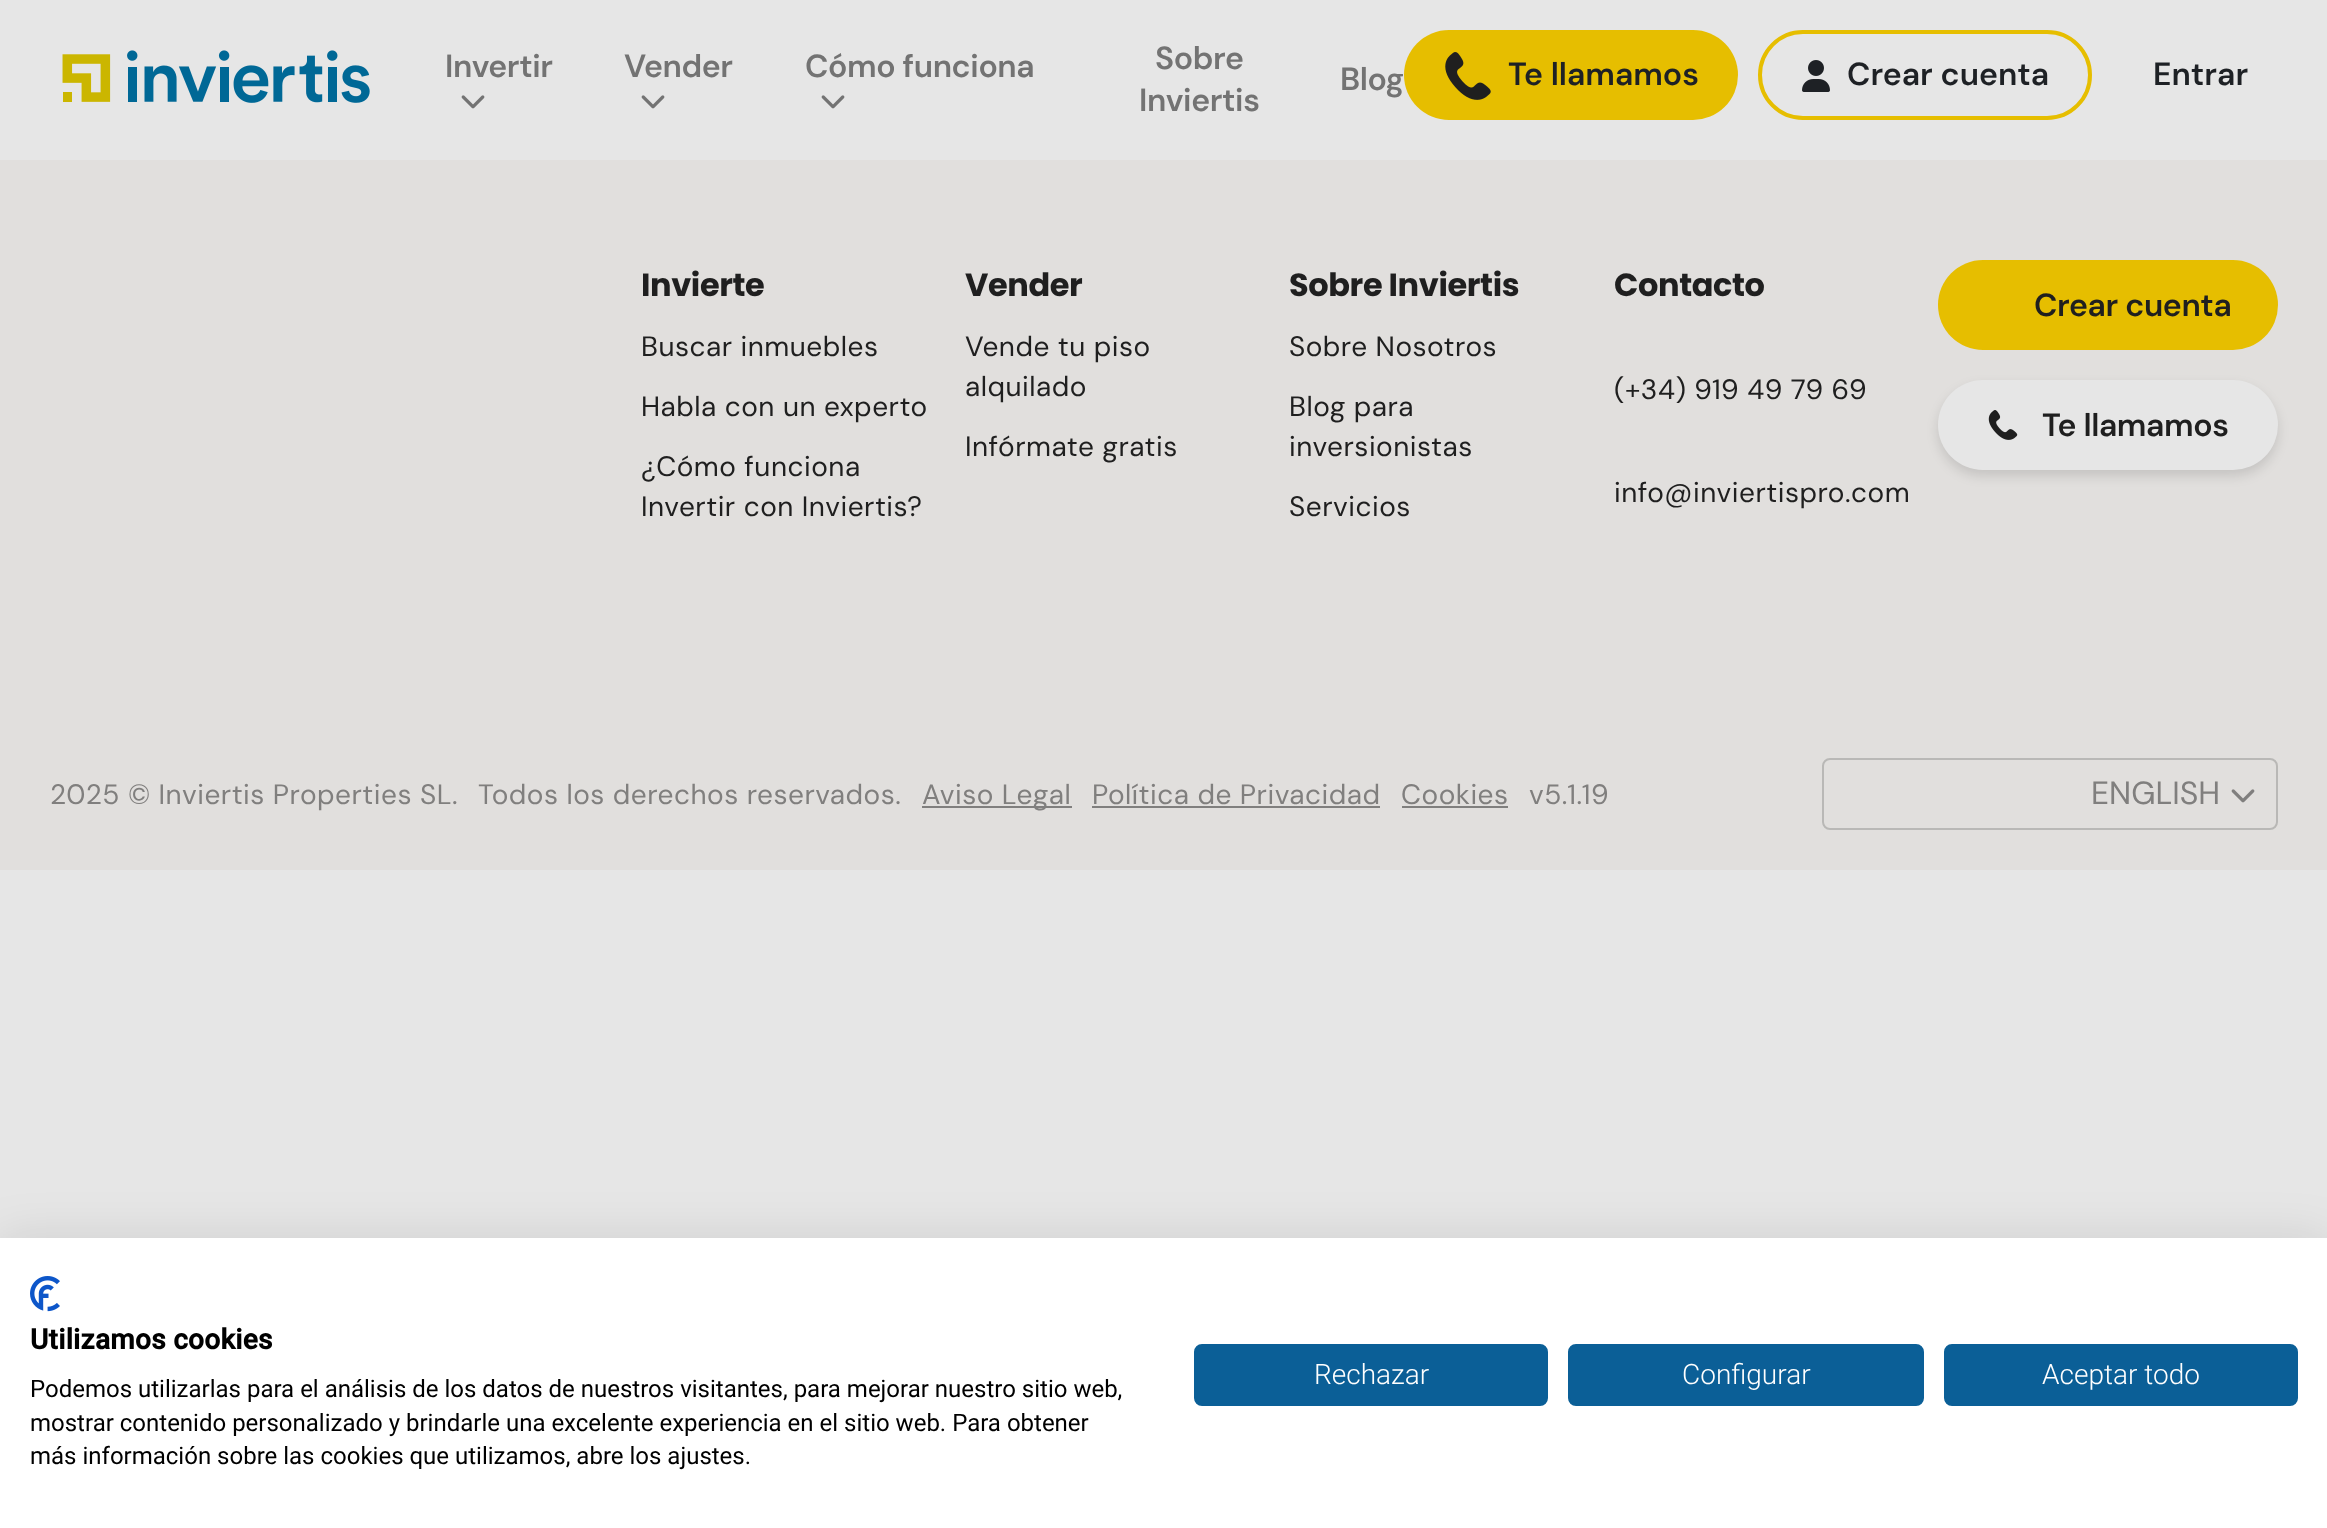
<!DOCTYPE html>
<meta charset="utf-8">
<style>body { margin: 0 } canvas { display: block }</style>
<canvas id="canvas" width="2327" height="1528"></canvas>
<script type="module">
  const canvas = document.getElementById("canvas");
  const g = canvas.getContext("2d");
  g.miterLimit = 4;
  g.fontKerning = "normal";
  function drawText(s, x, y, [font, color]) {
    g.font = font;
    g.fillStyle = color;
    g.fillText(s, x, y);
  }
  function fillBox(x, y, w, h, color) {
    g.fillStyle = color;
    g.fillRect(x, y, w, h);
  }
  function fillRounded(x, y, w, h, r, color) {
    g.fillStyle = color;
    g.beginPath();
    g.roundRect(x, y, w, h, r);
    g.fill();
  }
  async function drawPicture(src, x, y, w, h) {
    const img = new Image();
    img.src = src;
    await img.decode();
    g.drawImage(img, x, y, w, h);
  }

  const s1 = ["600 32px DM Sans", "#737373"];
  const s2 = ["600 32px DM Sans", "#1E2125"];
  const s3 = ["bold 32px Poppins", "#1F1F1F"];
  const s4 = ["28px DM Sans", "#1F1F1F"];
  const s5 = ["600 32px DM Sans", "#1F1F1F"];
  const s6 = ["28px DM Sans", "#807F7E"];
  const s7 = ["32px DM Sans", "#807F7E"];
  const s8 = ["bold 28px Roboto", "#000000"];
  const s9 = ["24px Roboto", "#000000"];
  const s10 = ["300 28px Roboto", "#FFFFFF"];

  fillBox(0, 0, 2327, 1528, "#E6E6E6");
  await drawPicture("pic1.png", 62, 50, 308, 53);
  g.letterSpacing = "-0.4px";
  drawText("Invertir", 445, 77, s1);
  await drawPicture("pic2.png", 461, 95, 24, 14);
  drawText("Vender", 624, 77, s1);
  await drawPicture("pic2.png", 641, 95, 24, 14);
  drawText("Cómo funciona", 805, 77, s1);
  await drawPicture("pic2.png", 821, 95, 24, 14);
  drawText("Sobre", 1155, 69, s1);
  drawText("Inviertis", 1139, 111, s1);
  drawText("Blog", 1340, 90, s1);
  fillRounded(1404, 30, 334, 90, 45, "#E6BE00");
  await drawPicture("pic3.png", 1445, 52, 46, 48);
  g.letterSpacing = "0px";
  drawText("Te llamamos", 1508, 85, s2);
  g.beginPath();
  g.roundRect(1760, 32, 330, 86, 43);
  g.strokeStyle = "#E6BE00";
  g.lineWidth = 4;
  g.stroke();
  await drawPicture("pic4.png", 1802, 60, 28, 32);
  drawText("Crear cuenta", 1847, 85, s2);
  drawText("Entrar", 2153, 85, s2);
  fillBox(0, 160, 2327, 710, "#E1DFDD");
  g.letterSpacing = "-0.4px";
  drawText("Invierte", 641, 296, s3);
  g.letterSpacing = "0.5px";
  drawText("Buscar inmuebles", 641, 356, s4);
  drawText("Habla con un experto", 641, 416, s4);
  drawText("¿Cómo funciona", 641, 476, s4);
  drawText("Invertir con Inviertis?", 641, 516, s4);
  g.letterSpacing = "-0.4px";
  drawText("Vender", 965, 296, s3);
  g.letterSpacing = "0.5px";
  drawText("Vende tu piso", 965, 356, s4);
  drawText("alquilado", 965, 396, s4);
  drawText("Infórmate gratis", 965, 456, s4);
  g.letterSpacing = "-0.4px";
  drawText("Sobre Inviertis", 1289, 296, s3);
  g.letterSpacing = "0.5px";
  drawText("Sobre Nosotros", 1289, 356, s4);
  drawText("Blog para", 1289, 416, s4);
  drawText("inversionistas", 1289, 456, s4);
  drawText("Servicios", 1289, 516, s4);
  g.letterSpacing = "-0.4px";
  drawText("Contacto", 1614, 296, s3);
  g.letterSpacing = "0.5px";
  drawText("(+34) 919 49 79 69", 1614, 399, s4);
  drawText("info@inviertispro.com", 1614, 502, s4);
  fillRounded(1938, 260, 340, 90, 45, "#E6BE00");
  g.letterSpacing = "-0.4px";
  drawText("Crear cuenta", 2034, 316, s5);
  g.fillStyle = "rgba(0, 0, 0, 0.12)";
  g.filter = "blur(6px)";
  g.beginPath();
  g.roundRect(1938, 386, 340, 90, 45);
  g.fill();
  g.filter = "none";
  fillRounded(1938, 380, 340, 90, 45, "#E6E6E6");
  await drawPicture("pic5.png", 1988, 410, 30, 30);
  drawText("Te llamamos", 2042, 436, s5);
  g.letterSpacing = "0.5px";
  drawText("2025 © Inviertis Properties SL.", 50, 804, s6);
  drawText("Todos los derechos reservados.", 478, 804, s6);
  fillBox(922, 806, 150, 2, "#807F7E");
  drawText("Aviso Legal", 922, 804, s6);
  drawText("Política de Privacidad", 1092, 804, s6);
  fillBox(1092, 806, 288, 2, "#807F7E");
  drawText("Cookies", 1401, 804, s6);
  fillBox(1402, 806, 106, 2, "#807F7E");
  drawText("v5.1.19", 1529, 804, s6);
  g.beginPath();
  g.roundRect(1823, 759, 454, 70, 7);
  g.strokeStyle = "#B9B8B6";
  g.lineWidth = 2;
  g.stroke();
  g.letterSpacing = "0px";
  drawText("ENGLISH", 2091, 804, s7);
  await drawPicture("pic6.png", 2231, 789, 24, 14);
  g.fillStyle = "rgba(0, 0, 0, 0.1)";
  g.filter = "blur(24px)";
  g.beginPath();
  g.rect(0, 1238, 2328, 290);
  g.fill();
  g.filter = "none";
  fillBox(0, 1238, 2327, 290, "#FFFFFF");
  await drawPicture("pic7.png", 30, 1276, 30, 36);
  g.letterSpacing = "0.3px";
  drawText("Utilizamos cookies", 30, 1349, s8);
  g.letterSpacing = "0px";
  drawText("Podemos utilizarlas para el análisis de los datos de nuestros visitantes, para mejorar nuestro sitio web,", 30, 1397, s9);
  drawText("mostrar contenido personalizado y brindarle una excelente experiencia en el sitio web. Para obtener", 30, 1431, s9);
  drawText("más información sobre las cookies que utilizamos, abre los ajustes.", 30, 1464, s9);
  g.fillStyle = "#0B5F97";
  g.beginPath();
  g.roundRect(1195, 1345, 352, 60, 7);
  g.fill();
  g.strokeStyle = "#0B5F97";
  g.stroke();
  drawText("Rechazar", 1314, 1384, s10);
  g.fillStyle = "#0B5F97";
  g.beginPath();
  g.roundRect(1569, 1345, 354, 60, 7);
  g.fill();
  g.stroke();
  drawText("Configurar", 1682, 1384, s10);
  g.fillStyle = "#0B5F97";
  g.beginPath();
  g.roundRect(1945, 1345, 352, 60, 7);
  g.fill();
  g.stroke();
  drawText("Aceptar todo", 2042, 1384, s10);
</script>
